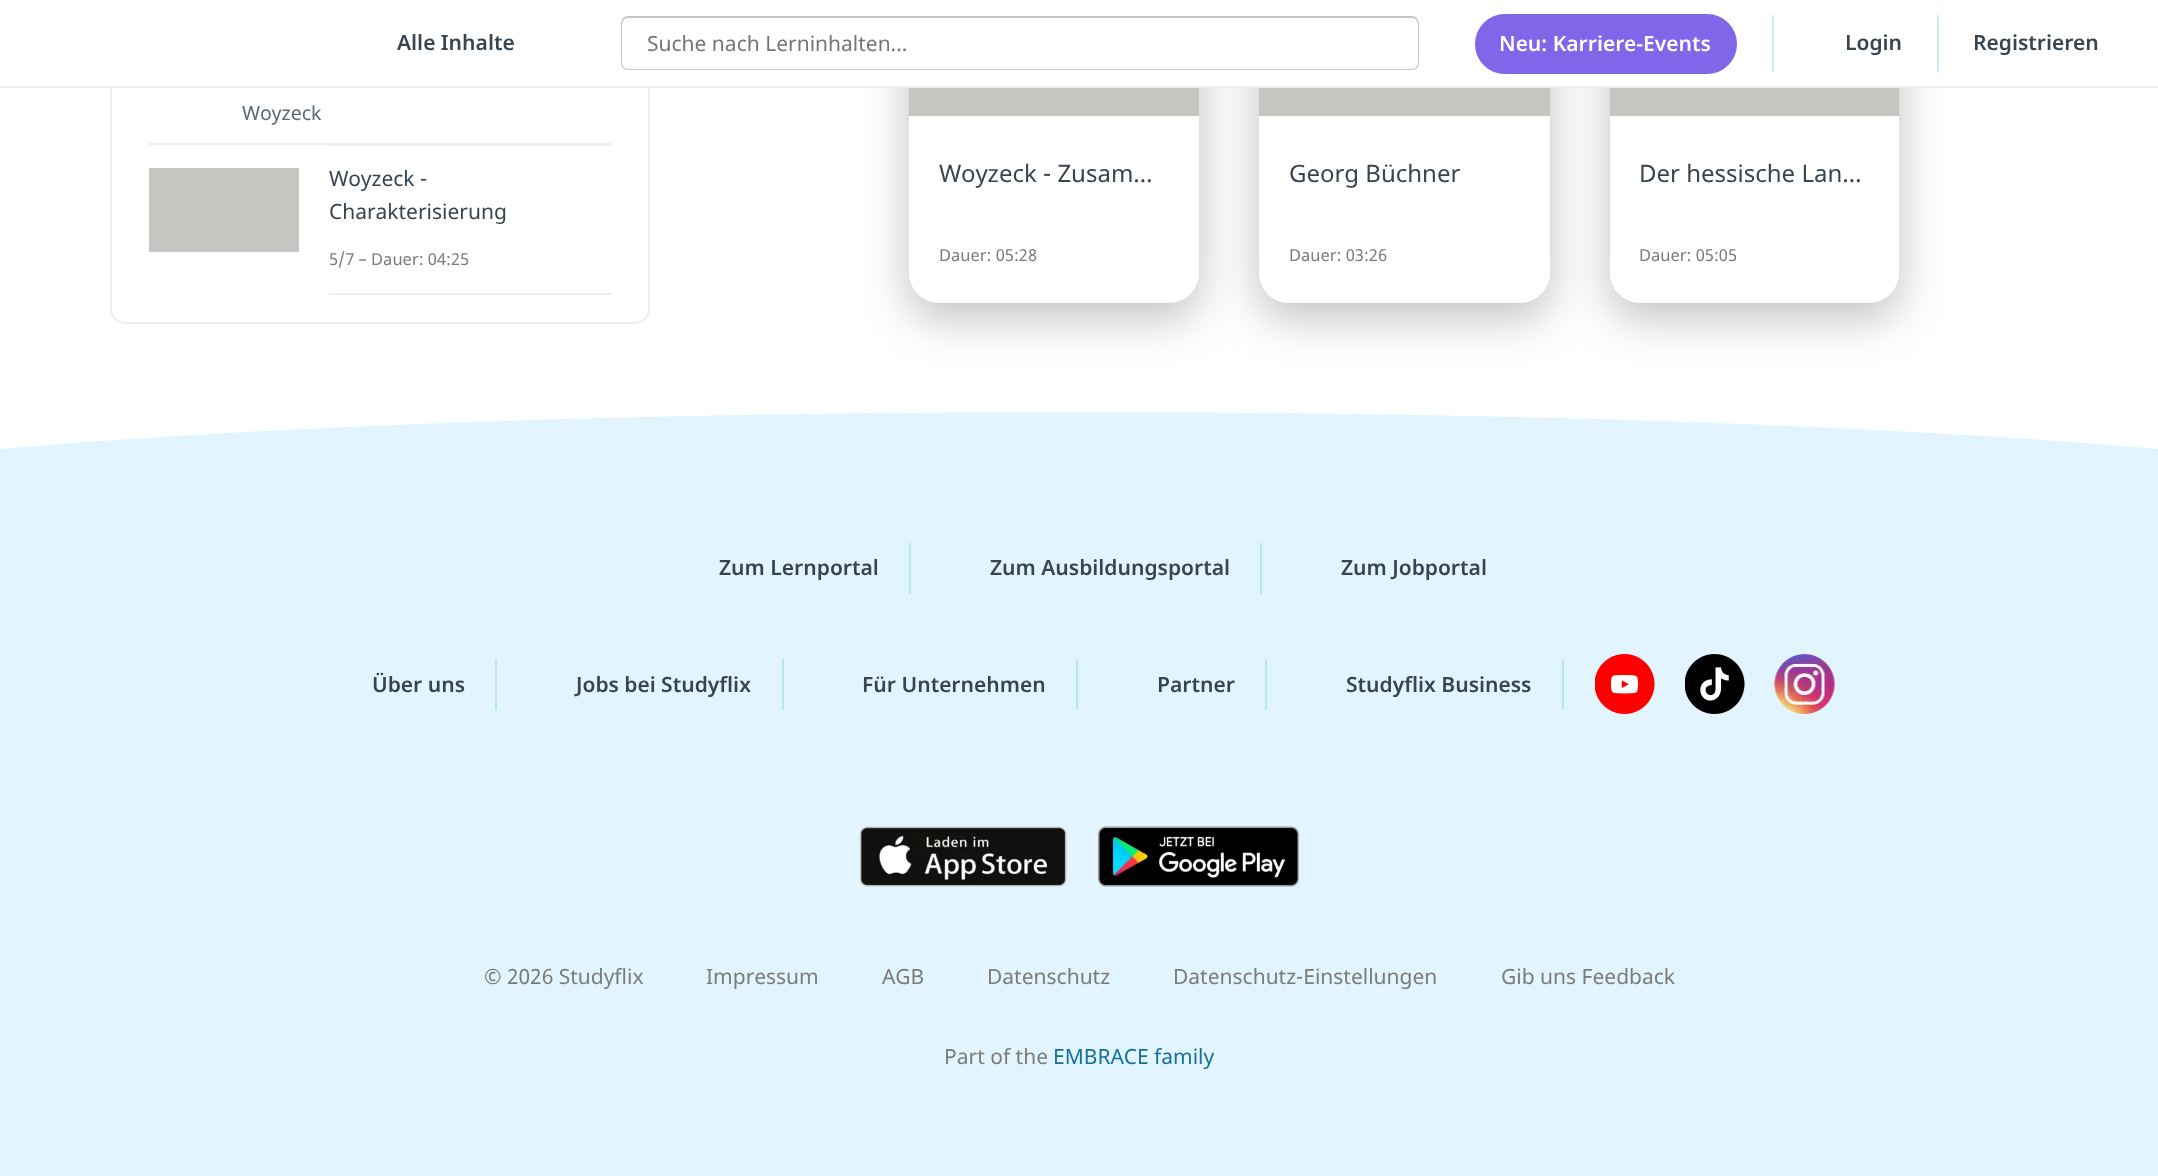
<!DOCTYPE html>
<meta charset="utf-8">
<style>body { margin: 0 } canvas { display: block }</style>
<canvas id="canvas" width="2158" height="1176"></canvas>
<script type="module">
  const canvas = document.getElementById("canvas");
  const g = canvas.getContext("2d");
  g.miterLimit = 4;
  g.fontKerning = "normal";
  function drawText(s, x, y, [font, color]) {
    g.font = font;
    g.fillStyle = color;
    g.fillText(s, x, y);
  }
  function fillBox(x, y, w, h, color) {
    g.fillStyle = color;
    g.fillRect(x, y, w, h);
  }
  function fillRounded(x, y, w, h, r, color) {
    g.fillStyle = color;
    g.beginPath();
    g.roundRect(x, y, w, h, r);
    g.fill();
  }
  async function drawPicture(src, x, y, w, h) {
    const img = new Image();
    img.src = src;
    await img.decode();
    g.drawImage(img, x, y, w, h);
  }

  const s1 = ["600 21px Noto Sans", "#38444F"];
  const s2 = ["21px Noto Sans", "#757575"];
  const s3 = ["600 21px Noto Sans", "#FFFFFF"];
  const s4 = ["19.5px Noto Sans", "#606972"];
  const s5 = ["21px Noto Sans", "#38444F"];
  const s6 = ["16.5px Noto Sans", "#7B7B7A"];
  const s7 = ["24px Noto Sans", "#38444F"];
  const s8 = ["21px Noto Sans", "#7B7B7A"];
  const s9 = ["21px Noto Sans", "#15709B"];

  fillBox(0, 0, 2158, 1176, "#FFFFFF");
  g.beginPath();
  g.roundRect(111, -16, 538, 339, 14);
  g.strokeStyle = "#EDEDEA";
  g.lineWidth = 2;
  g.stroke();
  g.fillStyle = "rgba(129, 129, 129, 0.5)";
  g.filter = "blur(22.5px)";
  g.beginPath();
  g.roundRect(909, -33, 290, 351, 30);
  g.fill();
  g.filter = "none";
  fillRounded(909, -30, 290, 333, 30, "#FFFFFF");
  fillBox(909, 88, 290, 28, "#C5C5C2");
  g.fillStyle = "rgba(129, 129, 129, 0.5)";
  g.filter = "blur(22.5px)";
  g.beginPath();
  g.roundRect(1259, -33, 291, 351, 30);
  g.fill();
  g.filter = "none";
  fillRounded(1259, -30, 291, 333, 30, "#FFFFFF");
  fillBox(1259, 88, 291, 28, "#C5C5C2");
  g.fillStyle = "rgba(129, 129, 129, 0.5)";
  g.filter = "blur(22.5px)";
  g.beginPath();
  g.roundRect(1610, -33, 289, 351, 30);
  g.fill();
  g.filter = "none";
  fillRounded(1610, -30, 289, 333, 30, "#FFFFFF");
  fillBox(110, 0, 1828, 86, "#FFFFFF");
  fillBox(0, 86, 2158, 2, "#EDEDEA");
  drawText("Alle Inhalte", 397, 50, s1);
  g.fillStyle = "#C5C5C2";
  g.beginPath();
  g.moveTo(628, 16);
  g.lineTo(1341, 16);
  g.lineTo(1341, 70);
  g.lineTo(628, 70);
  g.bezierCurveTo(624, 70, 621, 67, 621, 63);
  g.lineTo(621, 24);
  g.bezierCurveTo(621, 20, 624, 16, 628, 16);
  g.closePath();
  g.moveTo(628, 18);
  g.lineTo(1341, 18);
  g.lineTo(1341, 69);
  g.lineTo(628, 69);
  g.bezierCurveTo(625, 69, 622, 66, 622, 63);
  g.lineTo(622, 24);
  g.bezierCurveTo(622, 21, 625, 18, 628, 18);
  g.closePath();
  g.fill("evenodd");
  drawText("Suche nach Lerninhalten…", 647, 51, s2);
  g.fillStyle = "#C5C5C2";
  g.beginPath();
  g.moveTo(1341, 16);
  g.lineTo(1412, 16);
  g.bezierCurveTo(1416, 16, 1419, 20, 1419, 24);
  g.lineTo(1419, 63);
  g.bezierCurveTo(1419, 67, 1416, 70, 1412, 70);
  g.lineTo(1341, 70);
  g.closePath();
  g.moveTo(1341, 18);
  g.lineTo(1412, 18);
  g.bezierCurveTo(1415, 18, 1418, 21, 1418, 24);
  g.lineTo(1418, 63);
  g.bezierCurveTo(1418, 66, 1415, 69, 1412, 69);
  g.lineTo(1341, 69);
  g.closePath();
  g.fill("evenodd");
  fillBox(1772, 15, 2, 57, "#CAEDFD");
  g.fillStyle = "#8166EA";
  g.beginPath();
  g.roundRect(1476, 15, 260, 58, 29);
  g.fill();
  g.strokeStyle = "#8166EA";
  g.stroke();
  drawText("Neu: Karriere-Events", 1499, 51, s3);
  fillBox(1937, 15, 2, 57, "#CAEDFD");
  drawText("Login", 1845, 50, s1);
  drawText("Registrieren", 1973, 50, s1);
  fillBox(149, 143, 462, 2, "#EDEDED");
  drawText("Woyzeck", 242, 120, s4);
  fillBox(329, 145, 282, 1, "#EDEDED");
  fillBox(149, 168, 150, 84, "#C5C5C2");
  drawText("Woyzeck -", 329, 186, s5);
  drawText("Charakterisierung", 329, 219, s5);
  drawText("5/7 – Dauer: 04:25", 329, 265, s6);
  fillBox(329, 293, 282, 2, "#EDEDED");
  drawText("Woyzeck - Zusam…", 939, 182, s7);
  drawText("Dauer: 05:28", 939, 261, s6);
  drawText("Georg Büchner", 1289, 182, s7);
  drawText("Dauer: 03:26", 1289, 261, s6);
  fillBox(1610, 88, 289, 28, "#C5C5C2");
  drawText("Der hessische Lan…", 1639, 182, s7);
  drawText("Dauer: 05:05", 1639, 261, s6);
  fillBox(0, 498, 2158, 678, "#E2F5FE");
  g.beginPath();
  g.moveTo(1079, 412);
  g.bezierCurveTo(1511, 412, 1898, 426, 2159, 449);
  g.lineTo(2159, 498);
  g.lineTo(0, 498);
  g.lineTo(0, 449);
  g.bezierCurveTo(261, 426, 648, 412, 1079, 412);
  g.closePath();
  g.fill();
  drawText("Zum Lernportal", 719, 575, s1);
  fillBox(909, 543, 2, 51, "#B4E5FC");
  drawText("Zum Ausbildungsportal", 990, 575, s1);
  fillBox(1260, 543, 2, 51, "#B4E5FC");
  drawText("Zum Jobportal", 1341, 575, s1);
  drawText("Über uns", 372, 692, s1);
  fillBox(495, 659, 2, 51, "#B4E5FC");
  drawText("Jobs bei Studyflix", 576, 692, s1);
  fillBox(782, 659, 2, 51, "#B4E5FC");
  drawText("Für Unternehmen", 862, 692, s1);
  fillBox(1076, 659, 2, 51, "#B4E5FC");
  drawText("Partner", 1157, 692, s1);
  fillBox(1265, 659, 2, 51, "#B4E5FC");
  drawText("Studyflix Business", 1346, 692, s1);
  fillBox(1562, 659, 2, 51, "#B4E5FC");
  fillBox(1611, 675, 27, 19, "#FFFFFF");
  await drawPicture("pic1.png", 1595, 654, 60, 60);
  fillBox(1700, 667, 29, 34, "#FFFFFF");
  await drawPicture("pic2.png", 1685, 654, 60, 60);
  await drawPicture("pic3.png", 1774, 654, 61, 60);
  await drawPicture("pic4.png", 859, 826, 208, 61);
  await drawPicture("pic5.png", 1098, 826, 201, 61);
  drawText("© 2026 Studyflix", 484, 984, s8);
  drawText("Impressum", 706, 984, s8);
  drawText("AGB", 882, 984, s8);
  drawText("Datenschutz", 987, 984, s8);
  drawText("Datenschutz-Einstellungen", 1173, 984, s8);
  drawText("Gib uns Feedback", 1501, 984, s8);
  drawText("Part of the", 944, 1064, s8);
  drawText("EMBRACE family", 1053, 1064, s9);
</script>
